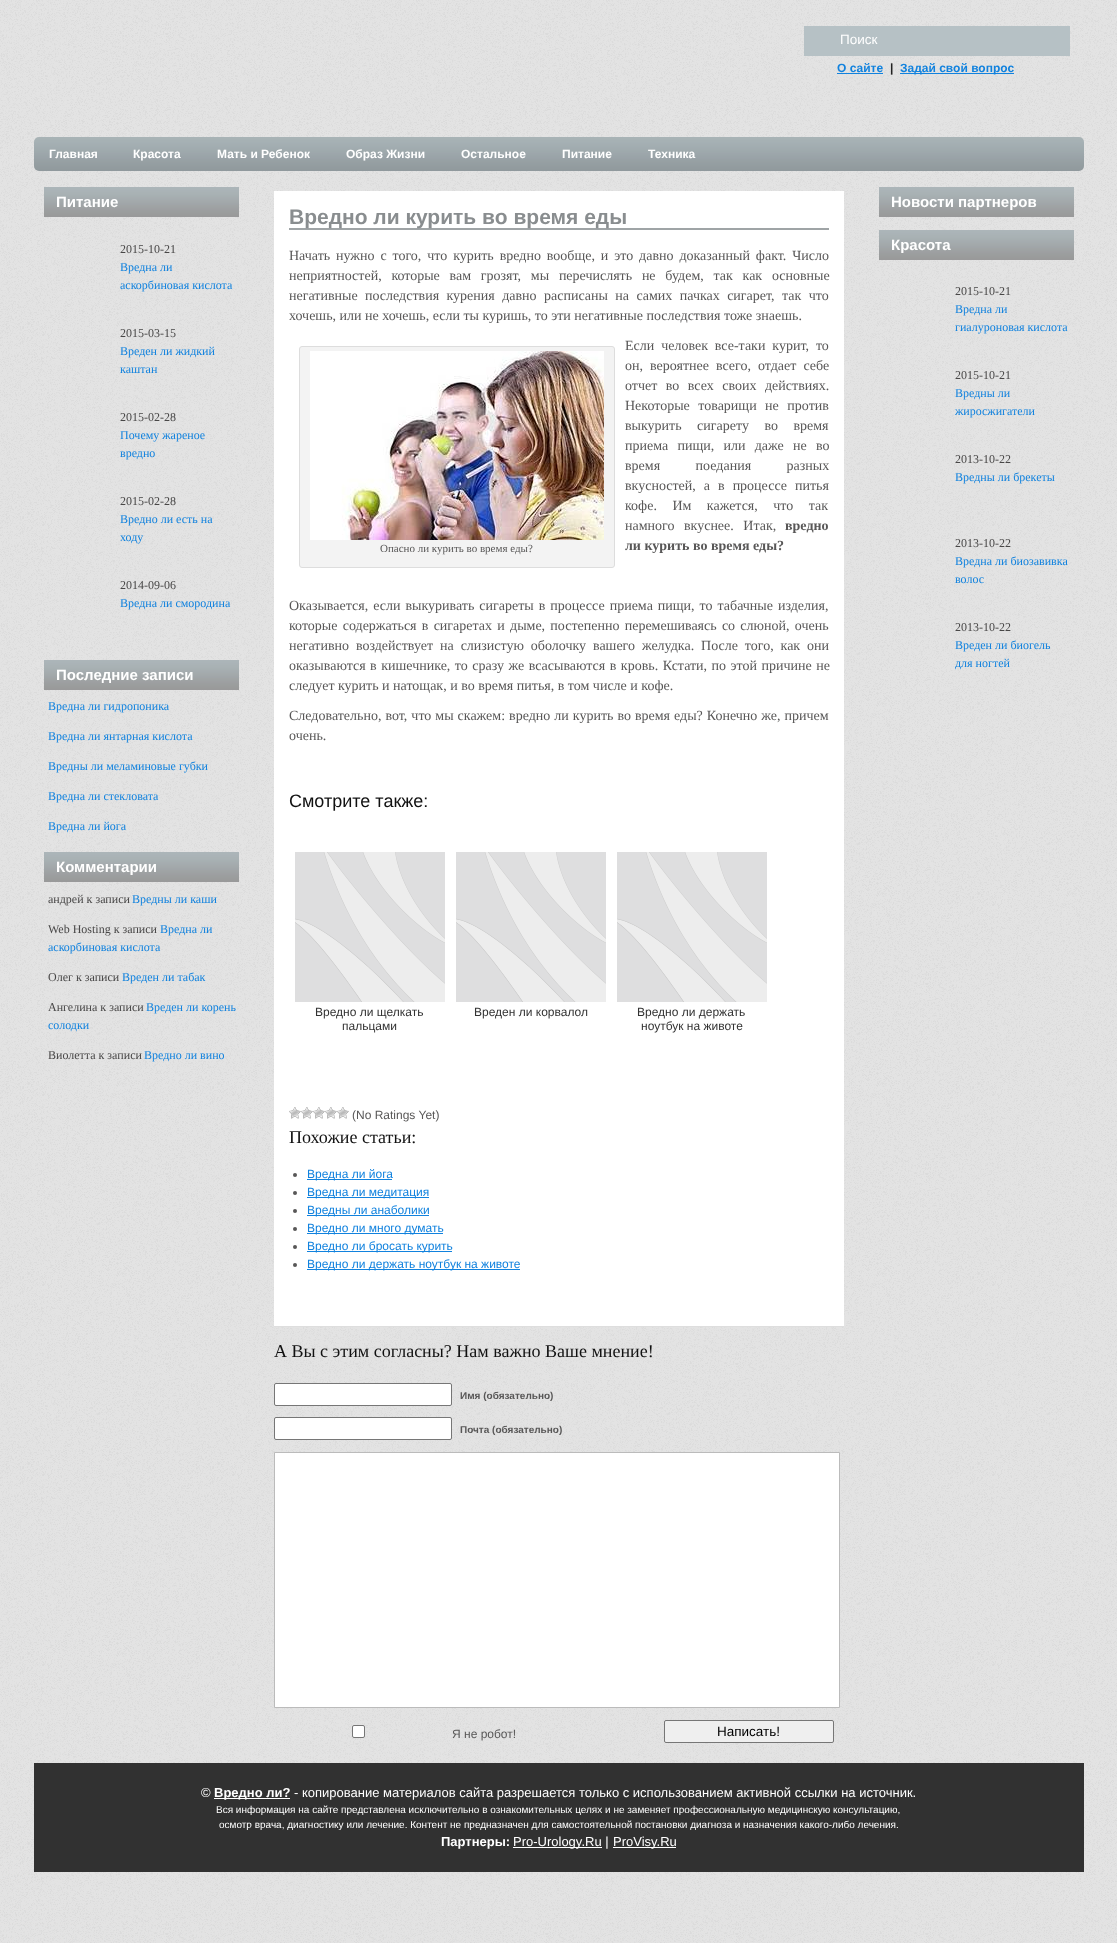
<!DOCTYPE html>
<meta charset="utf-8">
<style>body { margin: 0 } canvas { display: block }</style>
<canvas id="canvas" width="1117" height="1943"></canvas>
<script type="module">
  const canvas = document.getElementById("canvas");
  const g = canvas.getContext("2d");
  g.miterLimit = 4;
  g.fontKerning = "normal";
  function drawText(s, x, y, [font, color]) {
    g.font = font;
    g.fillStyle = color;
    g.fillText(s, x, y);
  }
  function fillBox(x, y, w, h, color) {
    g.fillStyle = color;
    g.fillRect(x, y, w, h);
  }
  async function drawPicture(src, x, y, w, h) {
    const img = new Image();
    img.src = src;
    await img.decode();
    g.drawImage(img, x, y, w, h);
  }

  const s1 = ["13.5px Liberation Sans", "#FFFFFF"];
  const s2 = ["bold 12px Liberation Sans", "#1182DE"];
  const s3 = ["bold 12px Liberation Sans", "#222222"];
  const s4 = ["bold 12px Liberation Sans", "#FFFFFF"];
  const s5 = ["bold 15px Liberation Sans", "#FFFFFF"];
  const s6 = ["12px Liberation Serif", "#484747"];
  const s7 = ["12px Liberation Serif", "#1182DE"];
  const s8 = ["bold 21px Liberation Sans", "#898D8F"];
  const s9 = ["14px Liberation Serif", "#585757"];
  const s10 = ["11px Liberation Serif", "#585757"];
  const s11 = ["bold 14px Liberation Serif", "#585757"];
  const s12 = ["18px Liberation Sans", "#111111"];
  const s13 = ["12px Liberation Sans", "#333333"];
  const s14 = ["12px Liberation Sans", "#585757"];
  const s15 = ["18px Liberation Serif", "#111111"];
  const s16 = ["12px Liberation Sans", "#1182DE"];
  const s17 = ["bold 10px Liberation Sans", "#585757"];
  const s18 = ["13.5px Liberation Sans", "#000000"];
  const s19 = ["13px Liberation Sans", "#FFFFFF"];
  const s20 = ["bold 13px Liberation Sans", "#FFFFFF"];
  const s21 = ["10px Liberation Sans", "#FFFFFF"];

  fillBox(0, 0, 1117, 1943, "#FFFFFF");
  await drawPicture("pic1.png", 0, 0, 1117, 1943);
  fillBox(804, 26, 266, 30, "#B6C1C5");
  drawText("Поиск", 840, 44, s1);
  drawText("О сайте", 837, 72, s2);
  fillBox(837, 73, 46, 1, "#1182DE");
  drawText("|", 890, 72, s3);
  fillBox(900, 73, 114, 1, "#1182DE");
  drawText("Задай свой вопрос", 900, 72, s2);
  await drawPicture("pic2.png", 34, 137, 1050, 34);
  drawText("Главная", 49, 158, s4);
  drawText("Красота", 133, 158, s4);
  drawText("Мать и Ребенок", 217, 158, s4);
  drawText("Образ Жизни", 346, 158, s4);
  drawText("Остальное", 461, 158, s4);
  drawText("Питание", 562, 158, s4);
  drawText("Техника", 648, 158, s4);
  await drawPicture("pic3.png", 44, 187, 195, 30);
  drawText("Питание", 56, 207, s5);
  drawText("2015-10-21", 120, 253, s6);
  drawText("Вредна ли", 120, 271, s7);
  drawText("аскорбиновая кислота", 120, 289, s7);
  drawText("2015-03-15", 120, 337, s6);
  drawText("Вреден ли жидкий", 120, 355, s7);
  drawText("каштан", 120, 373, s7);
  drawText("2015-02-28", 120, 421, s6);
  drawText("Почему жареное", 120, 439, s7);
  drawText("вредно", 120, 457, s7);
  drawText("2015-02-28", 120, 505, s6);
  drawText("Вредно ли есть на", 120, 523, s7);
  drawText("ходу", 120, 541, s7);
  drawText("2014-09-06", 120, 589, s6);
  drawText("Вредна ли смородина", 120, 607, s7);
  await drawPicture("pic3.png", 44, 660, 195, 30);
  drawText("Последние записи", 56, 680, s5);
  drawText("Вредна ли гидропоника", 48, 710, s7);
  drawText("Вредна ли янтарная кислота", 48, 740, s7);
  drawText("Вредны ли меламиновые губки", 48, 770, s7);
  drawText("Вредна ли стекловата", 48, 800, s7);
  drawText("Вредна ли йога", 48, 830, s7);
  await drawPicture("pic3.png", 44, 852, 195, 30);
  drawText("Комментарии", 56, 872, s5);
  drawText("андрей к записи", 48, 903, s6);
  drawText("Вредны ли каши", 132, 903, s7);
  drawText("Web Hosting к записи", 48, 933, s6);
  drawText("Вредна ли", 160, 933, s7);
  drawText("аскорбиновая кислота", 48, 951, s7);
  drawText("Олег к записи", 48, 981, s6);
  drawText("Вреден ли табак", 122, 981, s7);
  drawText("Ангелина к записи", 48, 1011, s6);
  drawText("Вреден ли корень", 146, 1011, s7);
  drawText("солодки", 48, 1029, s7);
  drawText("Виолетта к записи", 48, 1059, s6);
  drawText("Вредно ли вино", 144, 1059, s7);
  fillBox(274, 191, 570, 1135, "#FFFFFF");
  fillBox(274, 1326, 570, 1, "#DEDEDE");
  fillBox(289, 228, 540, 2, "#9FA4A6");
  drawText("Вредно ли курить во время еды", 289, 224, s8);
  g.wordSpacing = "2.4px";
  drawText("Начать нужно с того, что курить вредно вообще, и это давно доказанный факт. Число", 289, 260, s9);
  g.wordSpacing = "6.25px";
  drawText("неприятностей, которые вам грозят, мы перечислять не будем, так как основные", 289, 280, s9);
  g.wordSpacing = "3.9px";
  drawText("негативные последствия курения давно расписаны на самих пачках сигарет, так что", 289, 300, s9);
  g.wordSpacing = "0px";
  drawText("хочешь, или не хочешь, если ты куришь, то эти негативные последствия тоже знаешь.", 289, 320, s9);
  g.fillStyle = "#F3F3F3";
  g.beginPath();
  g.roundRect(299.5, 346.5, 315, 221, 2.5);
  g.fill();
  g.strokeStyle = "#DDDDDD";
  g.stroke();
  await drawPicture("pic4.png", 310, 351, 294, 189);
  drawText("Опасно ли курить во время еды?", 380, 552, s10);
  g.wordSpacing = "3.4px";
  drawText("Если человек все-таки курит, то", 625, 350, s9);
  g.wordSpacing = "3.5px";
  drawText("он, вероятнее всего, отдает себе", 625, 370, s9);
  g.wordSpacing = "5px";
  drawText("отчет во всех своих действиях.", 625, 390, s9);
  drawText("Некоторые товарищи не против", 625, 410, s9);
  g.wordSpacing = "12px";
  drawText("выкурить сигарету во время", 625, 430, s9);
  g.wordSpacing = "5.75px";
  drawText("приема пищи, или даже не во", 625, 450, s9);
  g.wordSpacing = "32px";
  drawText("время поедания разных", 625, 470, s9);
  g.wordSpacing = "4.5px";
  drawText("вкусностей, а в процессе питья", 625, 490, s9);
  g.wordSpacing = "12px";
  drawText("кофе. Им кажется, что так", 625, 510, s9);
  g.wordSpacing = "6px";
  drawText("намного вкуснее. Итак,", 625, 530, s9);
  g.wordSpacing = "0px";
  drawText("вредно", 785, 530, s11);
  drawText("ли курить во время еды?", 625, 550, s11);
  g.wordSpacing = "1.5px";
  drawText("Оказывается, если выкуривать сигареты в процессе приема пищи, то табачные изделия,", 289, 610, s9);
  g.wordSpacing = "1.75px";
  drawText("которые содержаться в сигаретах и дыме, постепенно перемешиваясь со слюной, очень", 289, 630, s9);
  g.wordSpacing = "3.4px";
  drawText("негативно воздействует на слизистую оболочку вашего желудка. После того, как они", 289, 650, s9);
  g.wordSpacing = "1px";
  drawText("оказываются в кишечнике, то сразу же всасываются в кровь. Кстати, по этой причине не", 289, 670, s9);
  g.wordSpacing = "0px";
  drawText("следует курить и натощак, и во время питья, в том числе и кофе.", 289, 690, s9);
  g.wordSpacing = "0.5px";
  drawText("Следовательно, вот, что мы скажем: вредно ли курить во время еды? Конечно же, причем", 289, 720, s9);
  g.wordSpacing = "0px";
  drawText("очень.", 289, 740, s9);
  drawText("Смотрите также:", 289, 807, s12);
  await drawPicture("pic5.png", 295, 852, 150, 150);
  drawText("Вредно ли щелкать", 315, 1016, s13);
  drawText("пальцами", 342, 1030, s13);
  await drawPicture("pic5.png", 456, 852, 150, 150);
  drawText("Вреден ли корвалол", 474, 1016, s13);
  await drawPicture("pic5.png", 617, 852, 150, 150);
  drawText("Вредно ли держать", 637, 1016, s13);
  drawText("ноутбук на животе", 641, 1030, s13);
  await drawPicture("pic6.png", 289, 1107, 12, 12);
  await drawPicture("pic6.png", 301, 1107, 12, 12);
  await drawPicture("pic6.png", 313, 1107, 12, 12);
  await drawPicture("pic6.png", 325, 1107, 12, 12);
  await drawPicture("pic6.png", 337, 1107, 12, 12);
  drawText("(No Ratings Yet)", 352, 1119, s14);
  drawText("Похожие статьи:", 289, 1143, s15);
  g.fillStyle = "#585757";
  g.beginPath();
  g.arc(295, 1175, 2, 0, Math.PI * 2);
  g.fill();
  fillBox(307, 1179, 85, 1, "#1182DE");
  drawText("Вредна ли йога", 307, 1178, s16);
  g.fillStyle = "#585757";
  g.beginPath();
  g.arc(295, 1193, 2, 0, Math.PI * 2);
  g.fill();
  fillBox(307, 1197, 122, 1, "#1182DE");
  drawText("Вредна ли медитация", 307, 1196, s16);
  g.fillStyle = "#585757";
  g.beginPath();
  g.arc(295, 1211, 2, 0, Math.PI * 2);
  g.fill();
  fillBox(307, 1215, 122, 1, "#1182DE");
  drawText("Вредны ли анаболики", 307, 1214, s16);
  g.fillStyle = "#585757";
  g.beginPath();
  g.arc(295, 1229, 2, 0, Math.PI * 2);
  g.fill();
  fillBox(307, 1233, 136, 1, "#1182DE");
  drawText("Вредно ли много думать", 307, 1232, s16);
  g.fillStyle = "#585757";
  g.beginPath();
  g.arc(295, 1247, 2, 0, Math.PI * 2);
  g.fill();
  fillBox(307, 1251, 145, 1, "#1182DE");
  drawText("Вредно ли бросать курить", 307, 1250, s16);
  g.fillStyle = "#585757";
  g.beginPath();
  g.arc(295, 1265, 2, 0, Math.PI * 2);
  g.fill();
  fillBox(307, 1269, 213, 1, "#1182DE");
  drawText("Вредно ли держать ноутбук на животе", 307, 1268, s16);
  drawText("А Вы с этим согласны? Нам важно Ваше мнение!", 274, 1357, s15);
  g.fillStyle = "#FFFFFF";
  g.beginPath();
  g.roundRect(274.5, 1383.5, 177, 22, 1.5);
  g.fill();
  g.strokeStyle = "#767676";
  g.stroke();
  drawText("Имя (обязательно)", 460, 1399, s17);
  g.fillStyle = "#FFFFFF";
  g.beginPath();
  g.roundRect(274.5, 1417.5, 177, 22, 1.5);
  g.fill();
  g.stroke();
  drawText("Почта (обязательно)", 460, 1433, s17);
  g.fillStyle = "#FFFFFF";
  g.beginPath();
  g.rect(274.5, 1452.5, 565, 255);
  g.fill();
  g.strokeStyle = "#BBBBBB";
  g.stroke();
  g.beginPath();
  g.roundRect(352.5, 1725.5, 12, 12, 1.5);
  g.fill();
  g.strokeStyle = "#767676";
  g.stroke();
  drawText("Я не робот!", 452, 1738, s14);
  g.fillStyle = "#EFEFEF";
  g.beginPath();
  g.roundRect(664.5, 1720.5, 169, 22, 1.5);
  g.fill();
  g.stroke();
  drawText("Написать!", 717, 1736, s18);
  await drawPicture("pic3.png", 879, 187, 195, 30);
  drawText("Новости партнеров", 891, 207, s5);
  await drawPicture("pic3.png", 879, 230, 195, 30);
  drawText("Красота", 891, 250, s5);
  drawText("2015-10-21", 955, 295, s6);
  drawText("Вредна ли", 955, 313, s7);
  drawText("гиалуроновая кислота", 955, 331, s7);
  drawText("2015-10-21", 955, 379, s6);
  drawText("Вредны ли", 955, 397, s7);
  drawText("жиросжигатели", 955, 415, s7);
  drawText("2013-10-22", 955, 463, s6);
  drawText("Вредны ли брекеты", 955, 481, s7);
  drawText("2013-10-22", 955, 547, s6);
  drawText("Вредна ли биозавивка", 955, 565, s7);
  drawText("волос", 955, 583, s7);
  drawText("2013-10-22", 955, 631, s6);
  drawText("Вреден ли биогель", 955, 649, s7);
  drawText("для ногтей", 955, 667, s7);
  fillBox(34, 1763, 1050, 109, "#313131");
  drawText("©", 201, 1797, s19);
  fillBox(214, 1798, 76, 1, "#FFFFFF");
  drawText("Вредно ли?", 214, 1797, s20);
  drawText("- копирование материалов сайта разрешается только с использованием активной ссылки на источник.", 294, 1797, s19);
  drawText("Вся информация на сайте представлена исключительно в ознакомительных целях и не заменяет профессиональную медицинскую консультацию,", 216, 1813, s21);
  drawText("осмотр врача, диагностику или лечение. Контент не предназначен для самостоятельной постановки диагноза и назначения какого-либо лечения.", 219, 1828, s21);
  drawText("Партнеры:", 441, 1846, s20);
  fillBox(513, 1847, 89, 1, "#FFFFFF");
  drawText("Pro-Urology.Ru |", 513, 1846, s19);
  fillBox(613, 1847, 63, 1, "#FFFFFF");
  drawText("ProVisy.Ru", 613, 1846, s19);
</script>
